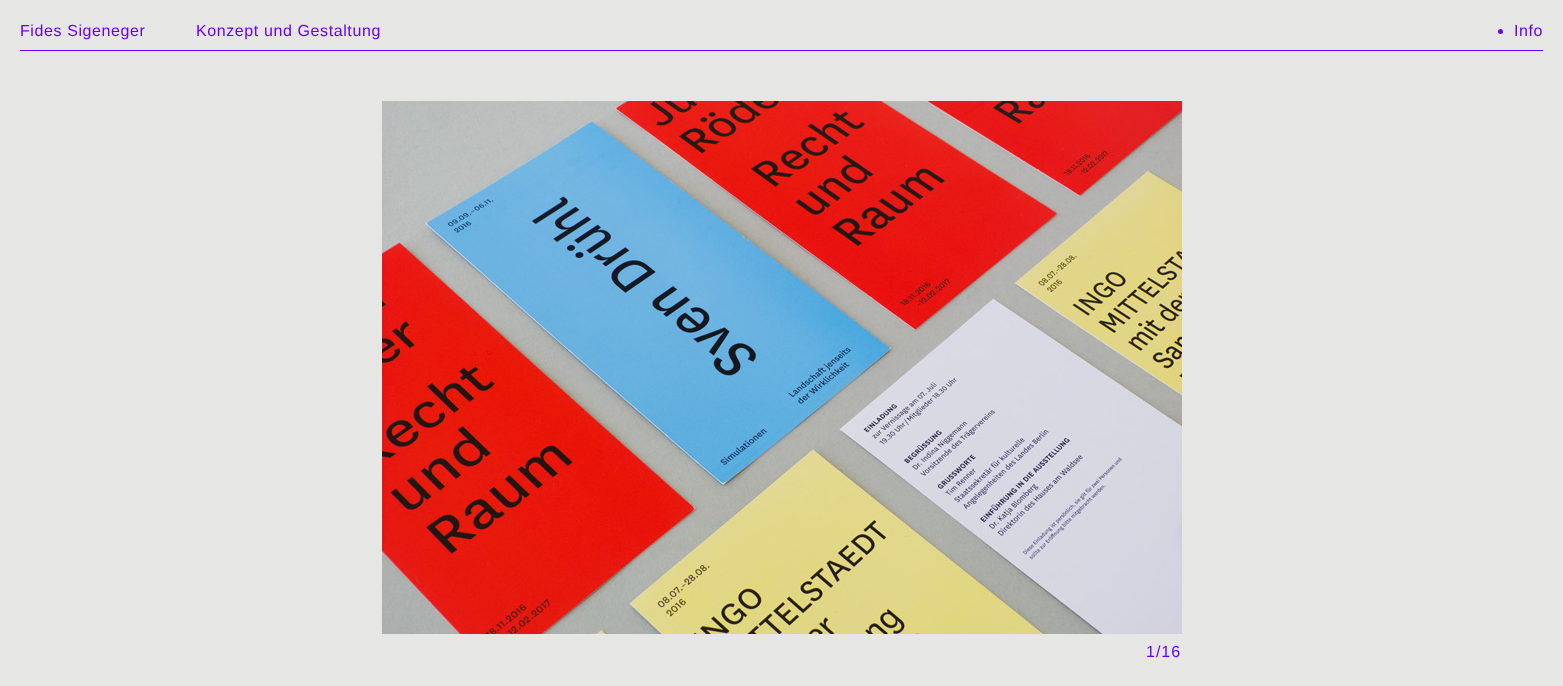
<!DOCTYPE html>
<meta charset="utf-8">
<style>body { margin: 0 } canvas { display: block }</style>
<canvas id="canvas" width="1563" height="686"></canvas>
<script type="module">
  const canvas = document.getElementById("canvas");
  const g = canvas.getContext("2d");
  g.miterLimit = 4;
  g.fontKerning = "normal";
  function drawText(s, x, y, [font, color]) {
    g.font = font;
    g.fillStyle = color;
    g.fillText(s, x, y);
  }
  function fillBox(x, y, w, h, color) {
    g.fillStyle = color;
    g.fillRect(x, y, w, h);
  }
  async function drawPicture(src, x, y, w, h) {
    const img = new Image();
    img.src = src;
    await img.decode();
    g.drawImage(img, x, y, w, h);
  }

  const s1 = ["16px Liberation Sans", "#6600FF"];

  fillBox(0, 0, 1563, 686, "#E6E6E5");
  g.letterSpacing = "0.6px";
  drawText("Fides Sigeneger", 20, 36, s1);
  drawText("Konzept und Gestaltung", 196, 36, s1);
  g.beginPath();
  g.arc(1500.5, 31.5, 2.5, 0, Math.PI * 2);
  g.fill();
  drawText("Info", 1514, 36, s1);
  fillBox(20, 50, 1523, 1, "#6600FF");
  await drawPicture("pic1.png", 382, 101, 800, 533);
  g.letterSpacing = "1px";
  drawText("1/16", 1146, 657, s1);
</script>
